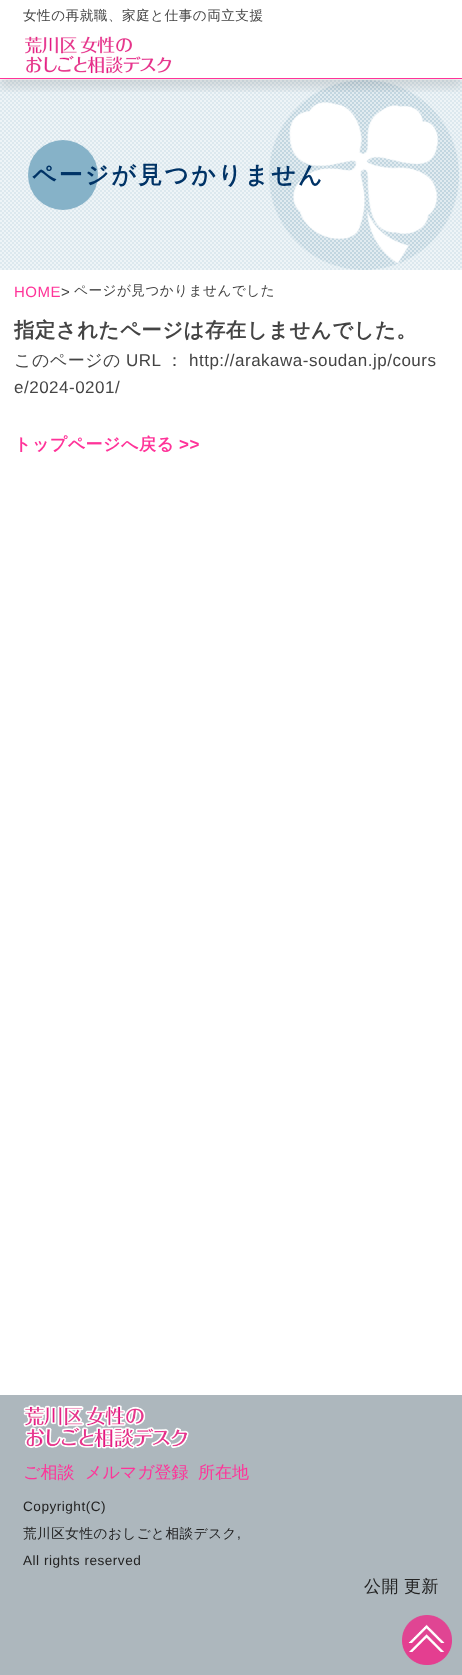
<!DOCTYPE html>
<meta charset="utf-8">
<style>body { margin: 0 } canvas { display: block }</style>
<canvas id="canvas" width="462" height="1675"></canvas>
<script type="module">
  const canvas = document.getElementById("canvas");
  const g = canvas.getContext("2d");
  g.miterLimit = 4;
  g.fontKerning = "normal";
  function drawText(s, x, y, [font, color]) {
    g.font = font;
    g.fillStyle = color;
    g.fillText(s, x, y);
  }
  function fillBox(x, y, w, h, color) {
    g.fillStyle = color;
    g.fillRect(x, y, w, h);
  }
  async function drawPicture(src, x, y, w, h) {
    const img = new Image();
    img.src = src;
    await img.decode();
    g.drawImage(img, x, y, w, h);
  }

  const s1 = ["500 13.6px WenQuanYi Zen Hei", "#444444"];
  const s2 = ["bold 23.75px WenQuanYi Zen Hei", "#003366"];
  const s3 = ["15px Liberation Sans", "#FF3399"];
  const s4 = ["15px Liberation Sans", "#444444"];
  const s5 = ["bold 20.4px WenQuanYi Zen Hei", "#444444"];
  const s6 = ["500 17px WenQuanYi Zen Hei", "#444444"];
  const s7 = ["17px Liberation Sans", "#444444"];
  const s8 = ["bold 17px WenQuanYi Zen Hei", "#FF3399"];
  const s9 = ["bold 17px Liberation Sans", "#FF3399"];
  const s10 = ["500 17px WenQuanYi Zen Hei", "#FF3399"];
  const s11 = ["13.6px Liberation Sans", "#222222"];
  const s12 = ["500 13.6px WenQuanYi Zen Hei", "#222222"];
  const s13 = ["500 17px WenQuanYi Zen Hei", "#222222"];

  fillBox(0, 0, 462, 1675, "#FFFFFF");
  fillBox(0, 80, 462, 190, "#DCE8EE");
  await drawPicture("pic2.png", 269, 80, 190, 190);
  await drawPicture("pic3.png", 0, 80, 462, 190);
  g.save();
  g.beginPath();
  g.rect(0, 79, 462, 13);
  g.clip();
  g.fillStyle = "rgba(0, 0, 0, 0.1)";
  g.filter = "blur(5px)";
  g.beginPath();
  g.rect(0, 9, 462, 79);
  g.fill();
  g.filter = "none";
  g.restore();
  fillBox(0, 78, 462, 1, "#FF3399");
  g.letterSpacing = "0.5px";
  drawText("女性の再就職、家庭と仕事の両立支援", 23, 20, s1);
  await drawPicture("pic1.png", 25, 36, 147, 38);
  g.fillStyle = "#86B2C8";
  g.beginPath();
  g.arc(63, 175, 35, 0, Math.PI * 2);
  g.fill();
  g.letterSpacing = "2.4px";
  drawText("ページが見つかりません", 32, 183, s2);
  g.letterSpacing = "0.5px";
  drawText("HOME", 14, 297, s3);
  g.letterSpacing = "0px";
  drawText(">", 61, 297, s4);
  g.letterSpacing = "0.5px";
  drawText("ページが見つかりませんでした", 74, 295, s1);
  drawText("指定されたページは存在しませんでした。", 14, 337, s5);
  drawText("このページの", 14, 366, s6);
  drawText("URL", 126, 366, s7);
  drawText("：", 166, 366, s6);
  drawText("http://arakawa-soudan.jp/cours", 189, 366, s7);
  drawText("e/2024-0201/", 14, 393, s7);
  drawText("トップページへ戻る", 14, 450, s8);
  drawText(">>", 179, 450, s9);
  fillBox(0, 1395, 462, 280, "#ADB7BD");
  await drawPicture("pic4.png", 23, 1405, 166, 44);
  g.letterSpacing = "0px";
  drawText("ご相談", 23, 1478, s10);
  drawText("メルマガ登録", 85, 1478, s10);
  drawText("所在地", 198, 1478, s10);
  g.letterSpacing = "0.5px";
  drawText("Copyright(C)", 23, 1511, s11);
  drawText("荒川区女性のおしごと相談デスク", 23, 1538, s12);
  drawText(",", 237, 1538, s11);
  drawText("All rights reserved", 23, 1565, s11);
  drawText("公開", 364, 1592, s13);
  drawText("更新", 404, 1592, s13);
  await drawPicture("pic5.png", 402, 1615, 50, 50);
</script>
